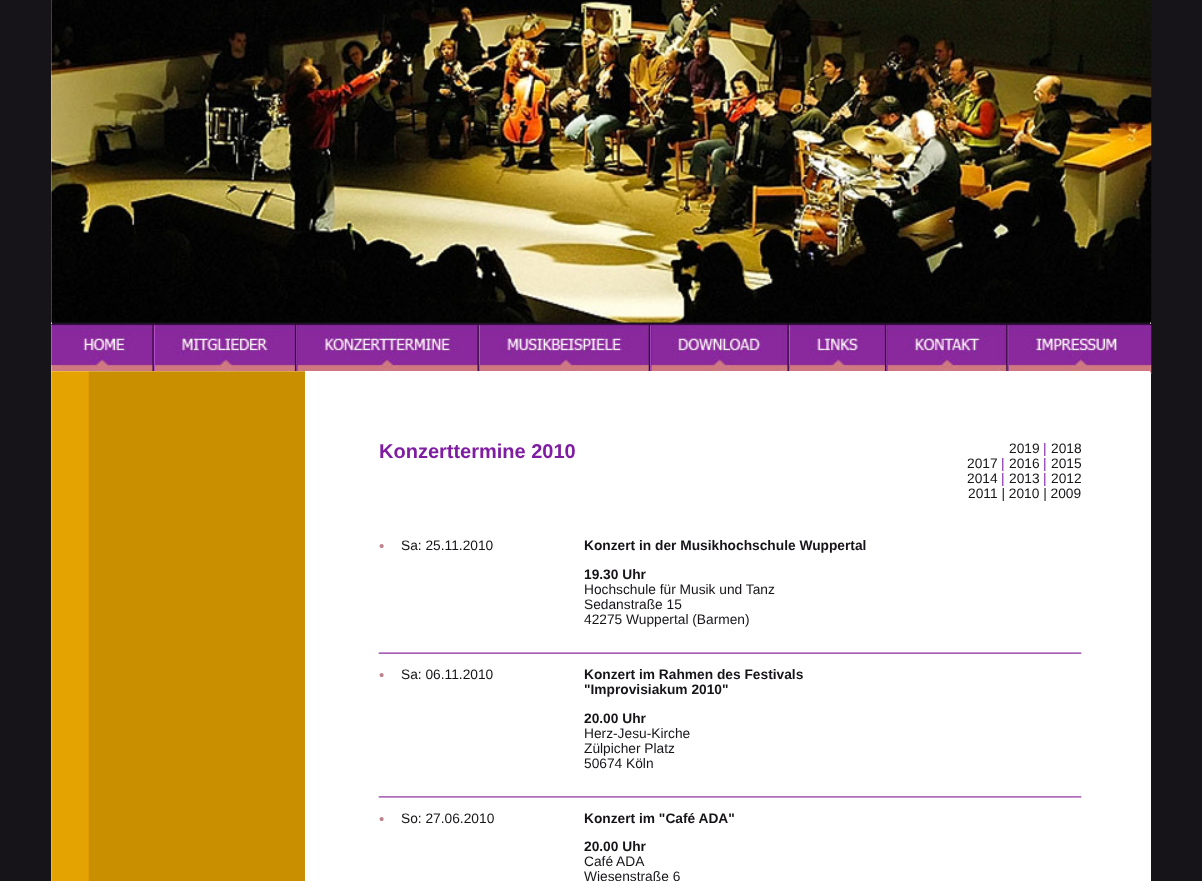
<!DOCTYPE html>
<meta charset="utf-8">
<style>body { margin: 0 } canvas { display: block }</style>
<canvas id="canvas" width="1202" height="881"></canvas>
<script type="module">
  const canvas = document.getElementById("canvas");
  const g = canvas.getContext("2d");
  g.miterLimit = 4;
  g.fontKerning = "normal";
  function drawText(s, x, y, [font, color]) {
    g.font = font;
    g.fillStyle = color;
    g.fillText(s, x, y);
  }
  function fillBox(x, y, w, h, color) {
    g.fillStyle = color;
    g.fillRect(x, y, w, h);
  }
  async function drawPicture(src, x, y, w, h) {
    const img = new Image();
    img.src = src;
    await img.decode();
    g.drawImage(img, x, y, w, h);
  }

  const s1 = ["bold 20px Liberation Sans", "#7F1DA2"];
  const s2 = ["13.75px Liberation Sans", "#171419"];
  const s3 = ["13.75px Liberation Sans", "#7F1DA2"];
  const s4 = ["15px Liberation Sans", "#BF838C"];
  const s5 = ["bold 13.75px Liberation Sans", "#171419"];

  fillBox(0, 0, 1202, 881, "#171419");
  fillBox(1150, 322, 1, 559, "#FFFFFF");
  fillBox(51, 0, 1, 371, "#FFFFFF");
  await drawPicture("pic1.png", 51, 0, 1101, 323);
  await drawPicture("pic2.png", 51, 323, 104, 48);
  await drawPicture("pic3.png", 155, 323, 143, 48);
  await drawPicture("pic4.png", 297, 323, 183, 48);
  await drawPicture("pic5.png", 480, 323, 172, 48);
  await drawPicture("pic6.png", 651, 323, 139, 48);
  await drawPicture("pic7.png", 790, 323, 98, 48);
  await drawPicture("pic8.png", 887, 323, 122, 48);
  await drawPicture("pic9.png", 1008, 323, 144, 51);
  fillBox(51, 371, 1099, 510, "#FFFFFF");
  await drawPicture("pic10.png", 51, 371, 254, 510);
  drawText("Konzerttermine 2010", 379, 458, s1);
  drawText("2019", 1009, 453, s2);
  drawText("|", 1043, 453, s3);
  drawText("2018", 1051, 453, s2);
  drawText("2017", 967, 468, s2);
  drawText("|", 1001, 468, s3);
  drawText("2016", 1009, 468, s2);
  drawText("|", 1043, 468, s3);
  drawText("2015", 1051, 468, s2);
  drawText("2014", 967, 483, s2);
  drawText("|", 1001, 483, s3);
  drawText("2013", 1009, 483, s2);
  drawText("|", 1043, 483, s3);
  drawText("2012", 1051, 483, s2);
  drawText("2011 | 2010 | 2009", 968, 498, s2);
  drawText("•", 379, 551, s4);
  drawText("Sa: 25.11.2010", 401, 550, s2);
  drawText("Konzert in der Musikhochschule Wuppertal", 584, 550, s5);
  drawText("19.30 Uhr", 584, 579, s5);
  drawText("Hochschule für Musik und Tanz", 584, 594, s2);
  drawText("Sedanstraße 15", 584, 609, s2);
  drawText("42275 Wuppertal (Barmen)", 584, 624, s2);
  await drawPicture("pic11.png", 378, 652, 704, 2);
  drawText("•", 379, 680, s4);
  drawText("Sa: 06.11.2010", 401, 679, s2);
  drawText("Konzert im Rahmen des Festivals", 584, 679, s5);
  drawText("\"Improvisiakum 2010\"", 584, 694, s5);
  drawText("20.00 Uhr", 584, 723, s5);
  drawText("Herz-Jesu-Kirche", 584, 738, s2);
  drawText("Zülpicher Platz", 584, 753, s2);
  drawText("50674 Köln", 584, 768, s2);
  await drawPicture("pic12.png", 378, 796, 704, 2);
  drawText("•", 379, 824, s4);
  drawText("So: 27.06.2010", 401, 823, s2);
  drawText("Konzert im \"Café ADA\"", 584, 823, s5);
  drawText("20.00 Uhr", 584, 851, s5);
  drawText("Café ADA", 584, 866, s2);
  drawText("Wiesenstraße 6", 584, 881, s2);
</script>
